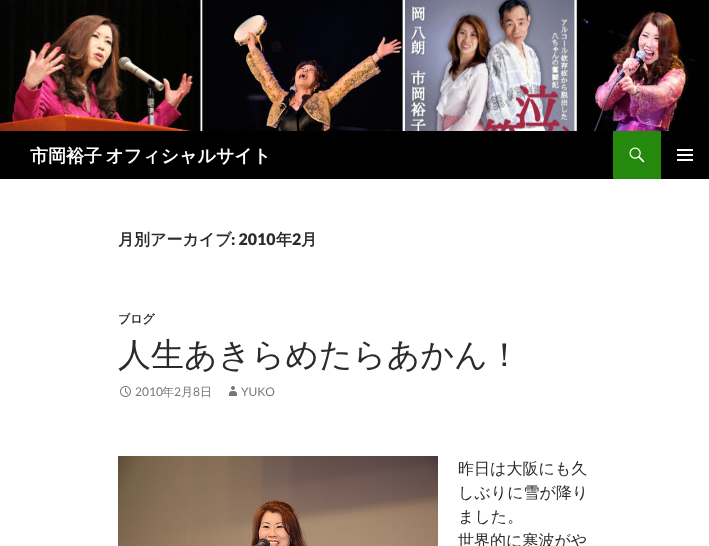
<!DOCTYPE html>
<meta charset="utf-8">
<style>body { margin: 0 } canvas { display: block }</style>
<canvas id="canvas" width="709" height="546"></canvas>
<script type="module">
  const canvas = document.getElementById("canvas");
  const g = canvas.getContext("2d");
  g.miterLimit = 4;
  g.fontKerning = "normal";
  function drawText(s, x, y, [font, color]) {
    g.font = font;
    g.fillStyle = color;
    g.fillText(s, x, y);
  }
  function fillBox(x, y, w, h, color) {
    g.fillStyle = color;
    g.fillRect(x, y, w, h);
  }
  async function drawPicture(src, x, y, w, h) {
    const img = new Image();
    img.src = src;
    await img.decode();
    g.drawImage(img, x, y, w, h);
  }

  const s1 = ["bold 18px WenQuanYi Zen Hei", "#FFFFFF"];
  const s2 = ["bold 16px WenQuanYi Zen Hei", "#2B2B2B"];
  const s3 = ["900 16px Lato", "#2B2B2B"];
  const s4 = ["bold 12px WenQuanYi Zen Hei", "#2B2B2B"];
  const s5 = ["500 33px WenQuanYi Zen Hei", "#2B2B2B"];
  const s6 = ["12px Lato", "#767676"];
  const s7 = ["500 12px WenQuanYi Zen Hei", "#767676"];
  const s8 = ["500 16px WenQuanYi Zen Hei", "#2B2B2B"];

  fillBox(0, 0, 709, 546, "#FFFFFF");
  await drawPicture("pic1.png", 0, 0, 709, 131);
  fillBox(0, 131, 709, 48, "#000000");
  g.wordSpacing = "-2px";
  drawText("市岡裕子 オフィシャルサイト", 30, 162, s1);
  fillBox(613, 131, 48, 48, "#24890D");
  await drawPicture("pic2.png", 629, 147, 16, 16);
  await drawPicture("pic3.png", 677, 149, 16, 12);
  g.wordSpacing = "0px";
  drawText("月別アーカイブ", 118, 245, s2);
  drawText(": 2010", 231, 245, s3);
  drawText("年", 276, 245, s2);
  drawText("2", 292, 245, s3);
  drawText("月", 301, 245, s2);
  drawText("ブログ", 118, 323, s4);
  drawText("人生あきらめたらあかん！", 118, 366, s5);
  await drawPicture("pic4.png", 120, 386, 11, 11);
  drawText("2010", 135, 396, s6);
  drawText("年", 162, 396, s7);
  drawText("2", 174, 396, s6);
  drawText("月", 181, 396, s7);
  drawText("8", 193, 396, s6);
  drawText("日", 200, 396, s7);
  await drawPicture("pic5.png", 229, 386, 8, 10);
  drawText("YUKO", 241, 396, s6);
  await drawPicture("pic6.png", 118, 456, 320, 90);
  drawText("昨日は大阪にも久", 458, 474, s8);
  drawText("しぶりに雪が降り", 458, 498, s8);
  drawText("ました。", 458, 522, s8);
  drawText("世界的に寒波がや", 458, 546, s8);
</script>
